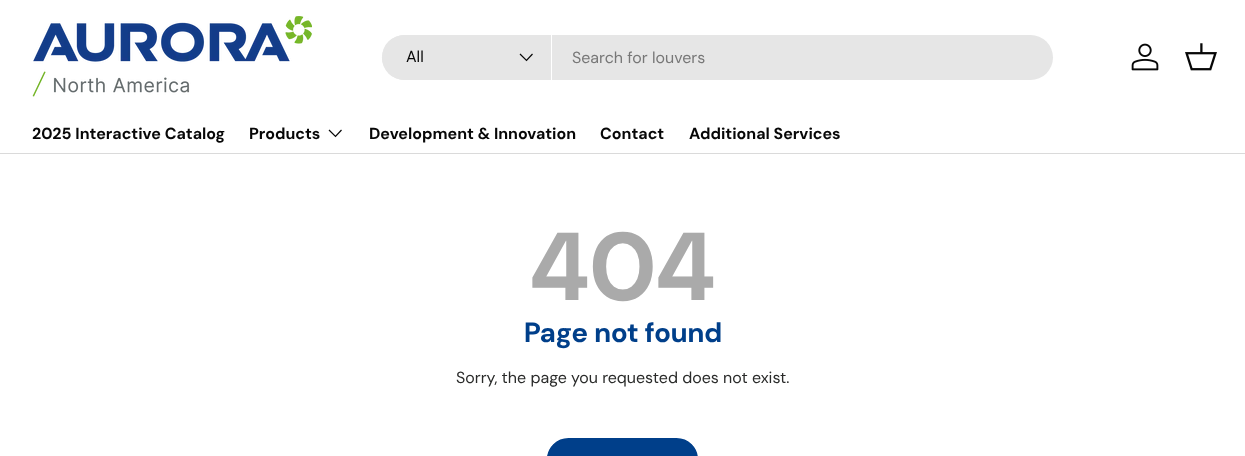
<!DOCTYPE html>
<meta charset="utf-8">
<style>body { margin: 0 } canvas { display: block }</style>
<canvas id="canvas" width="1245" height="456"></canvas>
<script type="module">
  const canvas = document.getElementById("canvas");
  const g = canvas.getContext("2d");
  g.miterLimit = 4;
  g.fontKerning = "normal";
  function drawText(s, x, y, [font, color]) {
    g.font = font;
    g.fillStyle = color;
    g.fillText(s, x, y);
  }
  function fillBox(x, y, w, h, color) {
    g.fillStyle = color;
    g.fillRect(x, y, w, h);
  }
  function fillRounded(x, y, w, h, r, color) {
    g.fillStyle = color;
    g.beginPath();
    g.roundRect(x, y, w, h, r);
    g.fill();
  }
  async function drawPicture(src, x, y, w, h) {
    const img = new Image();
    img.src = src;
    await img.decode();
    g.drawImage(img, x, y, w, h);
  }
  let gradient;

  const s1 = ["16px DM Sans", "#070707"];
  const s2 = ["16px DM Sans", "#777777"];
  const s3 = ["bold 16px 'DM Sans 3'", "#070707"];
  const s4 = ["bold 96px DM Sans", "#AAAAAA"];
  const s5 = ["bold 27.75px 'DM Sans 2'", "#003F8A"];
  const s6 = ["16px DM Sans", "#2A2B2A"];

  fillBox(0, 0, 1245, 456, "#FFFFFF");
  fillBox(0, 153, 1245, 1, "#DADADA");
  await drawPicture("pic1.png", 32, 16, 280, 81);
  fillRounded(382, 35, 671, 45, 22.5, "#E6E6E6");
  g.beginPath();
  g.roundRect(382, 35, 170, 45, [22.5, 0, 0, 22.5]);
  g.fill();
  fillBox(551, 35, 1, 45, "#FFFFFF");
  drawText("All", 406, 62, s1);
  g.beginPath();
  g.moveTo(532.5, 54);
  g.lineTo(526.5, 60.5);
  g.lineTo(520, 54);
  g.strokeStyle = "#070707";
  g.lineWidth = 1.2;
  g.stroke();
  drawText("Search for louvers", 572, 63, s2);
  await drawPicture("pic2.png", 1131, 43, 28, 28);
  await drawPicture("pic3.png", 1185, 43, 32, 28);
  drawText("2025 Interactive Catalog", 32, 139, s3);
  drawText("Products", 249, 139, s3);
  g.beginPath();
  g.moveTo(341.5, 130);
  g.lineTo(335.5, 136.5);
  g.lineTo(329, 130);
  g.stroke();
  drawText("Development & Innovation", 369, 139, s3);
  drawText("Contact", 600, 139, s3);
  drawText("Additional Services", 689, 139, s3);
  drawText("404", 530, 300, s4);
  drawText("Page not found", 524, 342, s5);
  drawText("Sorry, the page you requested does not exist.", 456, 383, s6);
  g.save();
  g.beginPath();
  g.roundRect(547, 438, 151, 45, 22.5);
  g.clip();
  gradient = g.createLinearGradient(263, 408, 688, 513);
  gradient.addColorStop(0.6, "#2963A8");
  gradient.addColorStop(0.6, "#003F8A");
  gradient.addColorStop(1, "#003F8A");
  g.fillStyle = gradient;
  g.fillRect(547, 440, 149, 16);
  g.restore();
  g.beginPath();
  g.roundRect(548, 439, 149, 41, 21.5);
  g.strokeStyle = "#003F8A";
  g.lineWidth = 2;
  g.stroke();
</script>
